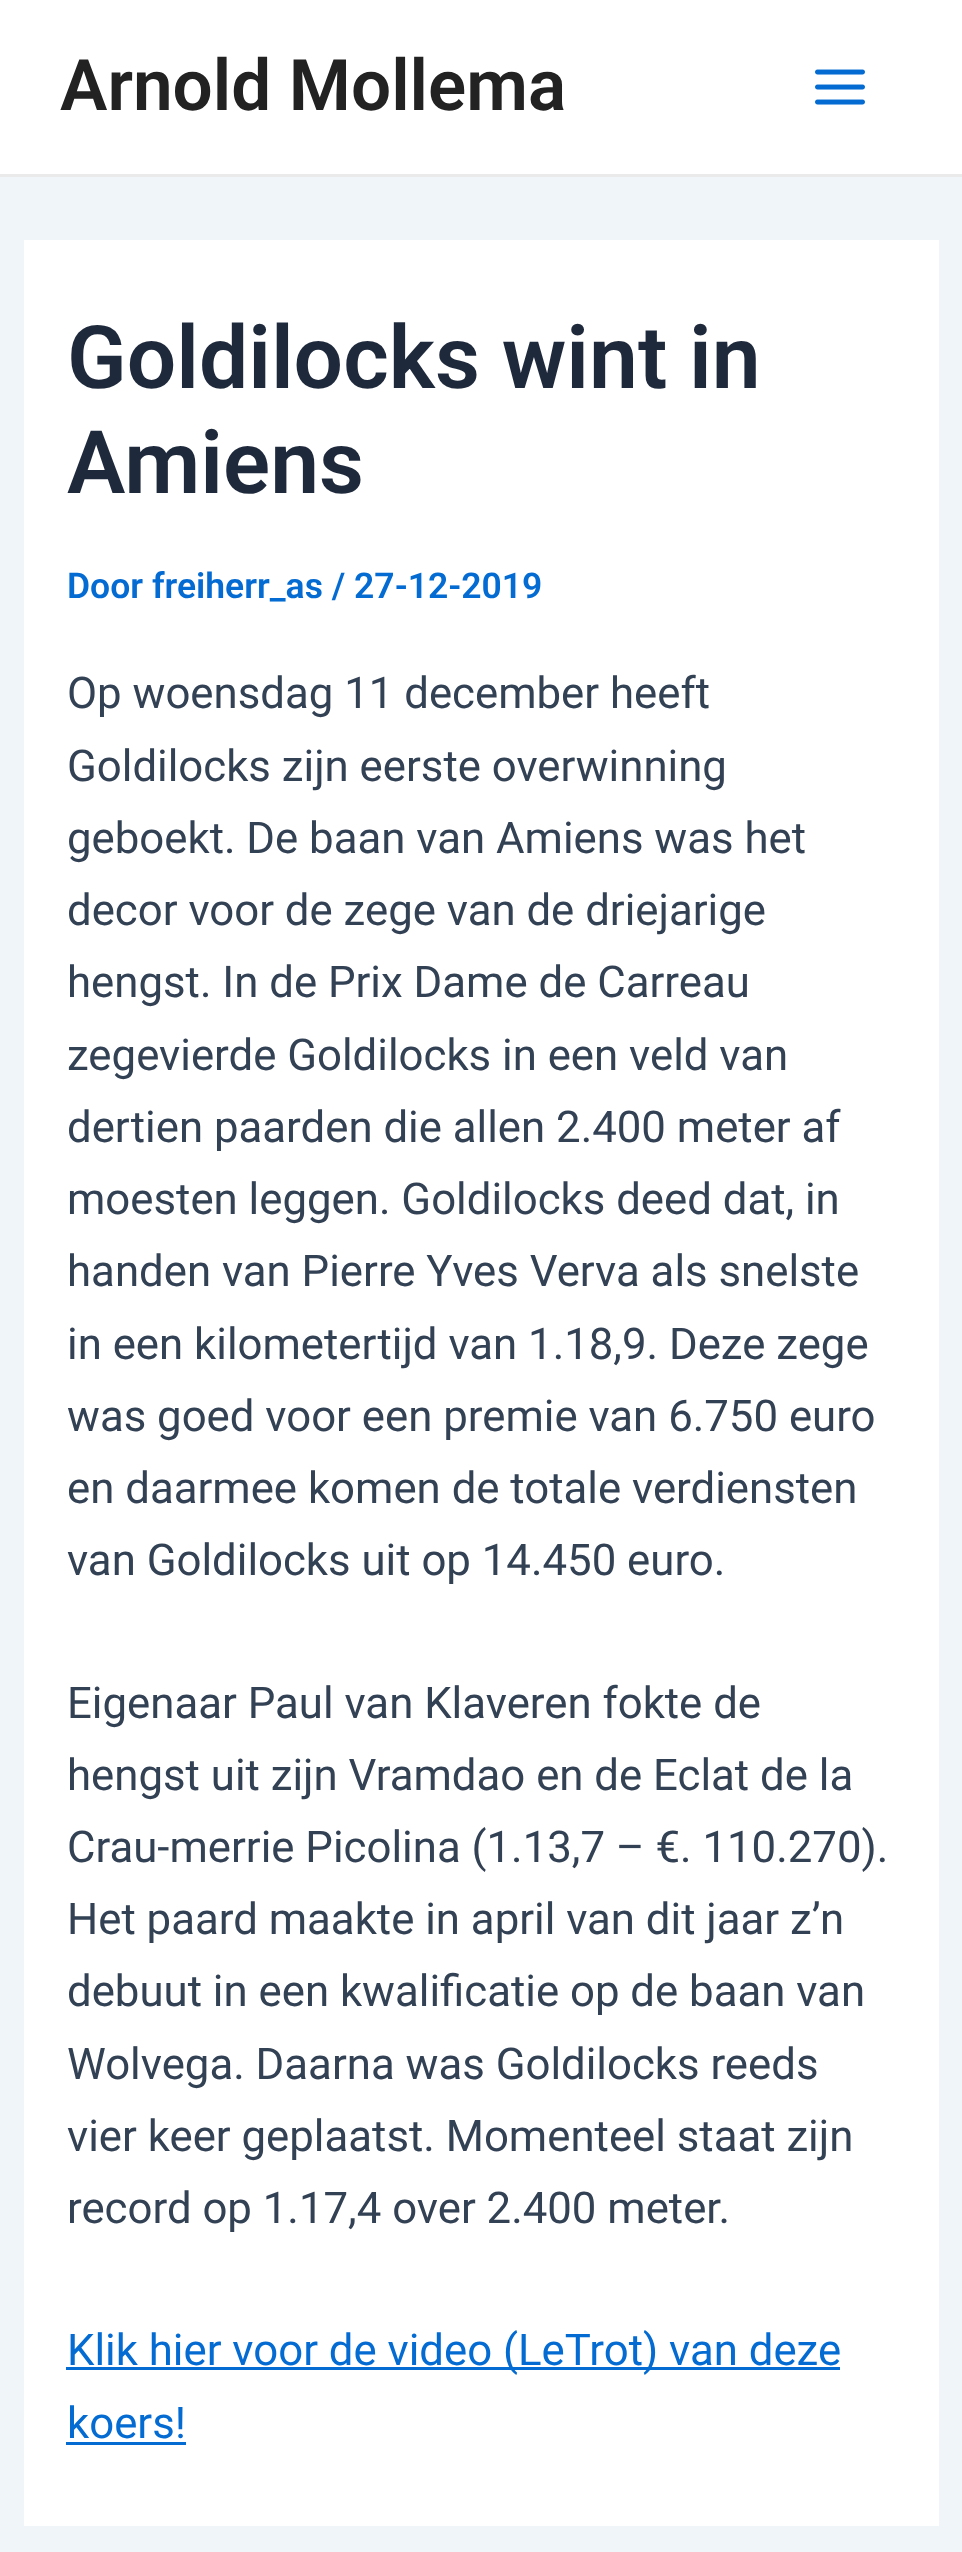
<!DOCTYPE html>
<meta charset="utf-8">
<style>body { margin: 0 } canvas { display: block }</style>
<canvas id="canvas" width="962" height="2552"></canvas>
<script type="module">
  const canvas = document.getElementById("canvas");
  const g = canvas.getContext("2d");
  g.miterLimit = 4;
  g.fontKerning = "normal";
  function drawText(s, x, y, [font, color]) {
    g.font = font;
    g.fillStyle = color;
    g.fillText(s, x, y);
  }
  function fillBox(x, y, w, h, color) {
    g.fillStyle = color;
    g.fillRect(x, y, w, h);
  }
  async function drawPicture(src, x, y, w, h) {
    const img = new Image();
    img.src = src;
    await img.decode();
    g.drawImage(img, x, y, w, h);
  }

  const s1 = ["600 71px Roboto", "#222222"];
  const s2 = ["600 87.5px Roboto", "#1E293B"];
  const s3 = ["600 35.5px Roboto", "#046BD2"];
  const s4 = ["43.75px Roboto", "#334155"];
  const s5 = ["43.75px Roboto", "#046BD2"];

  fillBox(0, 0, 962, 2552, "#F0F5FA");
  fillBox(0, 0, 962, 174, "#FFFFFF");
  fillBox(0, 174, 962, 3, "#EAEAEA");
  drawText("Arnold Mollema", 60, 110, s1);
  await drawPicture("pic1.png", 815, 69, 50, 36);
  fillBox(24, 240, 915, 2286, "#FFFFFF");
  drawText("Goldilocks wint in", 67, 388, s2);
  drawText("Amiens", 67, 493, s2);
  drawText("Door freiherr_as / 27-12-2019", 67, 598, s3);
  drawText("Op woensdag 11 december heeft", 67, 708, s4);
  drawText("Goldilocks zijn eerste overwinning", 67, 781, s4);
  drawText("geboekt. De baan van Amiens was het", 67, 853, s4);
  drawText("decor voor de zege van de driejarige", 67, 925, s4);
  drawText("hengst. In de Prix Dame de Carreau", 67, 997, s4);
  drawText("zegevierde Goldilocks in een veld van", 67, 1070, s4);
  drawText("dertien paarden die allen 2.400 meter af", 67, 1142, s4);
  drawText("moesten leggen. Goldilocks deed dat, in", 67, 1214, s4);
  drawText("handen van Pierre Yves Verva als snelste", 67, 1286, s4);
  drawText("in een kilometertijd van 1.18,9. Deze zege", 67, 1359, s4);
  drawText("was goed voor een premie van 6.750 euro", 67, 1431, s4);
  drawText("en daarmee komen de totale verdiensten", 67, 1503, s4);
  drawText("van Goldilocks uit op 14.450 euro.", 67, 1575, s4);
  drawText("Eigenaar Paul van Klaveren fokte de", 67, 1718, s4);
  drawText("hengst uit zijn Vramdao en de Eclat de la", 67, 1790, s4);
  drawText("Crau-merrie Picolina (1.13,7 – €. 110.270).", 67, 1862, s4);
  drawText("Het paard maakte in april van dit jaar z’n", 67, 1934, s4);
  drawText("debuut in een kwalificatie op de baan van", 67, 2006, s4);
  drawText("Wolvega. Daarna was Goldilocks reeds", 67, 2079, s4);
  drawText("vier keer geplaatst. Momenteel staat zijn", 67, 2151, s4);
  drawText("record op 1.17,4 over 2.400 meter.", 67, 2223, s4);
  fillBox(66, 2367, 774, 3, "#046BD2");
  drawText("Klik hier voor de video (LeTrot) van deze", 67, 2365, s5);
  drawText("koers!", 67, 2438, s5);
  fillBox(66, 2442, 120, 3, "#046BD2");
</script>
